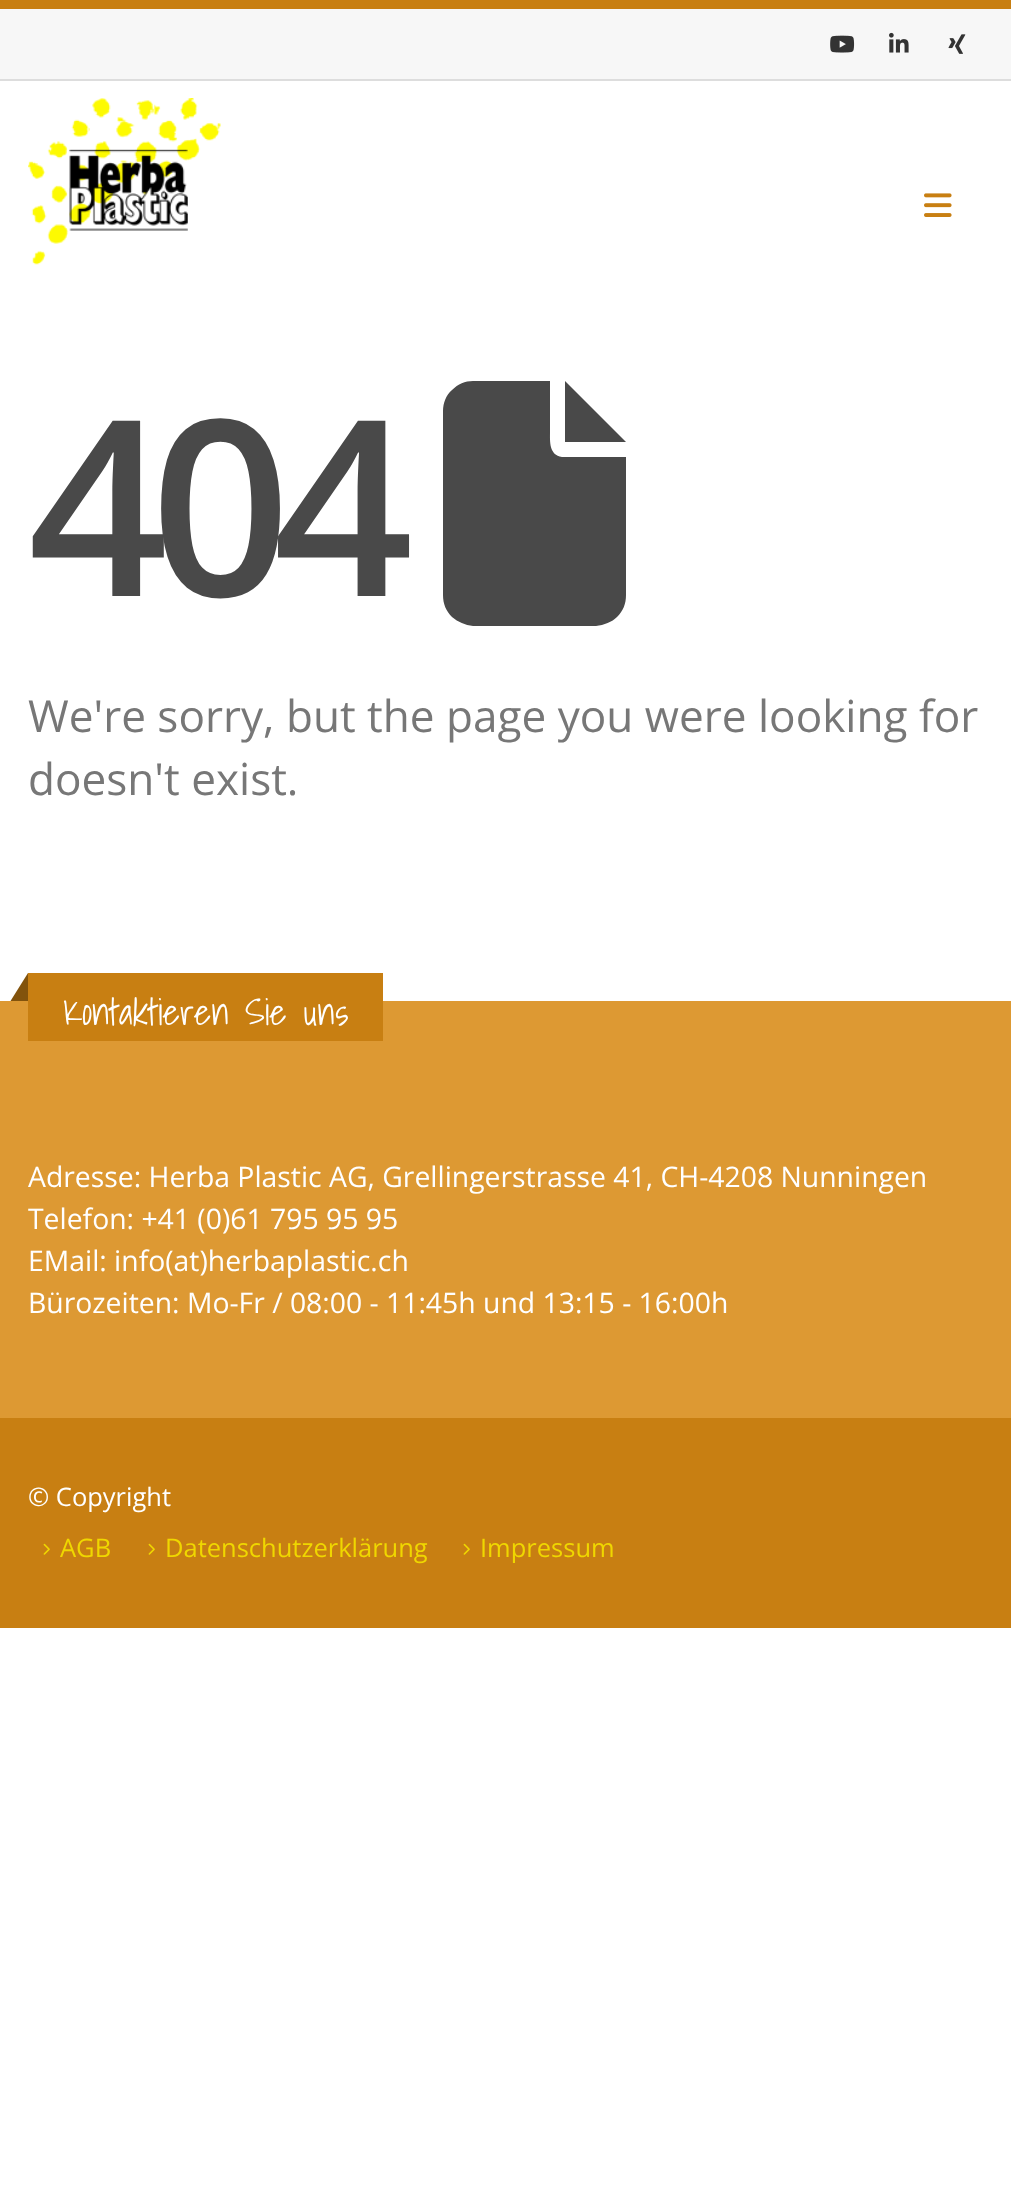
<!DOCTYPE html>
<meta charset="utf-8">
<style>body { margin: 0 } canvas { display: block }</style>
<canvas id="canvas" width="1011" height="2185"></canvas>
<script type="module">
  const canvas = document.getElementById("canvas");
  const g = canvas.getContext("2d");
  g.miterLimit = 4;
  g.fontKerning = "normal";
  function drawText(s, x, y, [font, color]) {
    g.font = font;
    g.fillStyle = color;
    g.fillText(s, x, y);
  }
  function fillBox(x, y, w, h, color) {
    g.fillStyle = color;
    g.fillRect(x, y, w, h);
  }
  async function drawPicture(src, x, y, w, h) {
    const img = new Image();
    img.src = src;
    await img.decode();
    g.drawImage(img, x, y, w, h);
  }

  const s1 = ["600 245px Open Sans", "#494949"];
  const s2 = ["44.1px Open Sans", "#777777"];
  const s3 = ["300 36.5px Shadows Into Light", "#FFFFFF"];
  const s4 = ["28.35px Open Sans", "#FFFFFF"];
  const s5 = ["25.5px Open Sans", "#FFFFFF"];
  const s6 = ["25.5px Open Sans", "#EFD700"];

  fillBox(0, 0, 1011, 2185, "#FFFFFF");
  fillBox(0, 0, 1011, 9, "#C87F12");
  fillBox(0, 9, 1011, 70, "#F7F7F7");
  fillBox(0, 79, 1011, 2, "#DDDDDD");
  await drawPicture("pic1.png", 830, 35, 25, 18);
  await drawPicture("pic2.png", 889, 32, 20, 21);
  await drawPicture("pic3.png", 948, 34, 18, 20);
  await drawPicture("pic4.png", 28, 98, 193, 167);
  await drawPicture("pic5.png", 924, 193, 28, 24);
  g.letterSpacing = "-17.5px";
  drawText("404", 28, 596, s1);
  g.beginPath();
  g.moveTo(443, 411);
  g.bezierCurveTo(443, 403, 446, 395, 452, 390);
  g.bezierCurveTo(458, 384, 465, 381, 473, 381);
  g.lineTo(550, 381);
  g.lineTo(550, 432);
  g.bezierCurveTo(550, 442, 549, 455, 562, 457);
  g.lineTo(626, 457);
  g.lineTo(626, 595);
  g.bezierCurveTo(626, 604, 623, 611, 617, 617);
  g.bezierCurveTo(612, 622, 604, 625, 596, 626);
  g.lineTo(473, 626);
  g.bezierCurveTo(465, 625, 458, 622, 452, 617);
  g.bezierCurveTo(446, 611, 443, 604, 443, 595);
  g.closePath();
  g.moveTo(626, 442);
  g.lineTo(565, 442);
  g.lineTo(565, 381);
  g.closePath();
  g.fill();
  g.letterSpacing = "0px";
  drawText("We're sorry, but the page you were looking for", 28, 732, s2);
  drawText("doesn't exist.", 28, 795, s2);
  fillBox(0, 1001, 1011, 417, "#DD9933");
  fillBox(28, 973, 355, 68, "#C87F12");
  g.fillStyle = "#82530C";
  g.beginPath();
  g.moveTo(28, 973);
  g.lineTo(28, 1001);
  g.lineTo(10.5, 1001);
  g.closePath();
  g.fill();
  drawText("Kontaktieren Sie uns", 63, 1025, s3);
  drawText("Adresse: Herba Plastic AG, Grellingerstrasse 41, CH-4208 Nunningen", 28, 1187, s4);
  drawText("Telefon: +41 (0)61 795 95 95", 28, 1229, s4);
  drawText("EMail: info(at)herbaplastic.ch", 28, 1271, s4);
  drawText("Bürozeiten: Mo-Fr / 08:00 - 11:45h und 13:15 - 16:00h", 28, 1313, s4);
  fillBox(0, 1418, 1011, 210, "#C87F12");
  drawText("© Copyright", 28, 1506, s5);
  await drawPicture("pic6.png", 43, 1543, 7, 12);
  drawText("AGB", 60, 1557, s6);
  await drawPicture("pic6.png", 148, 1543, 7, 12);
  drawText("Datenschutzerklärung", 165, 1557, s6);
  await drawPicture("pic6.png", 463, 1543, 7, 12);
  drawText("Impressum", 480, 1557, s6);
</script>
